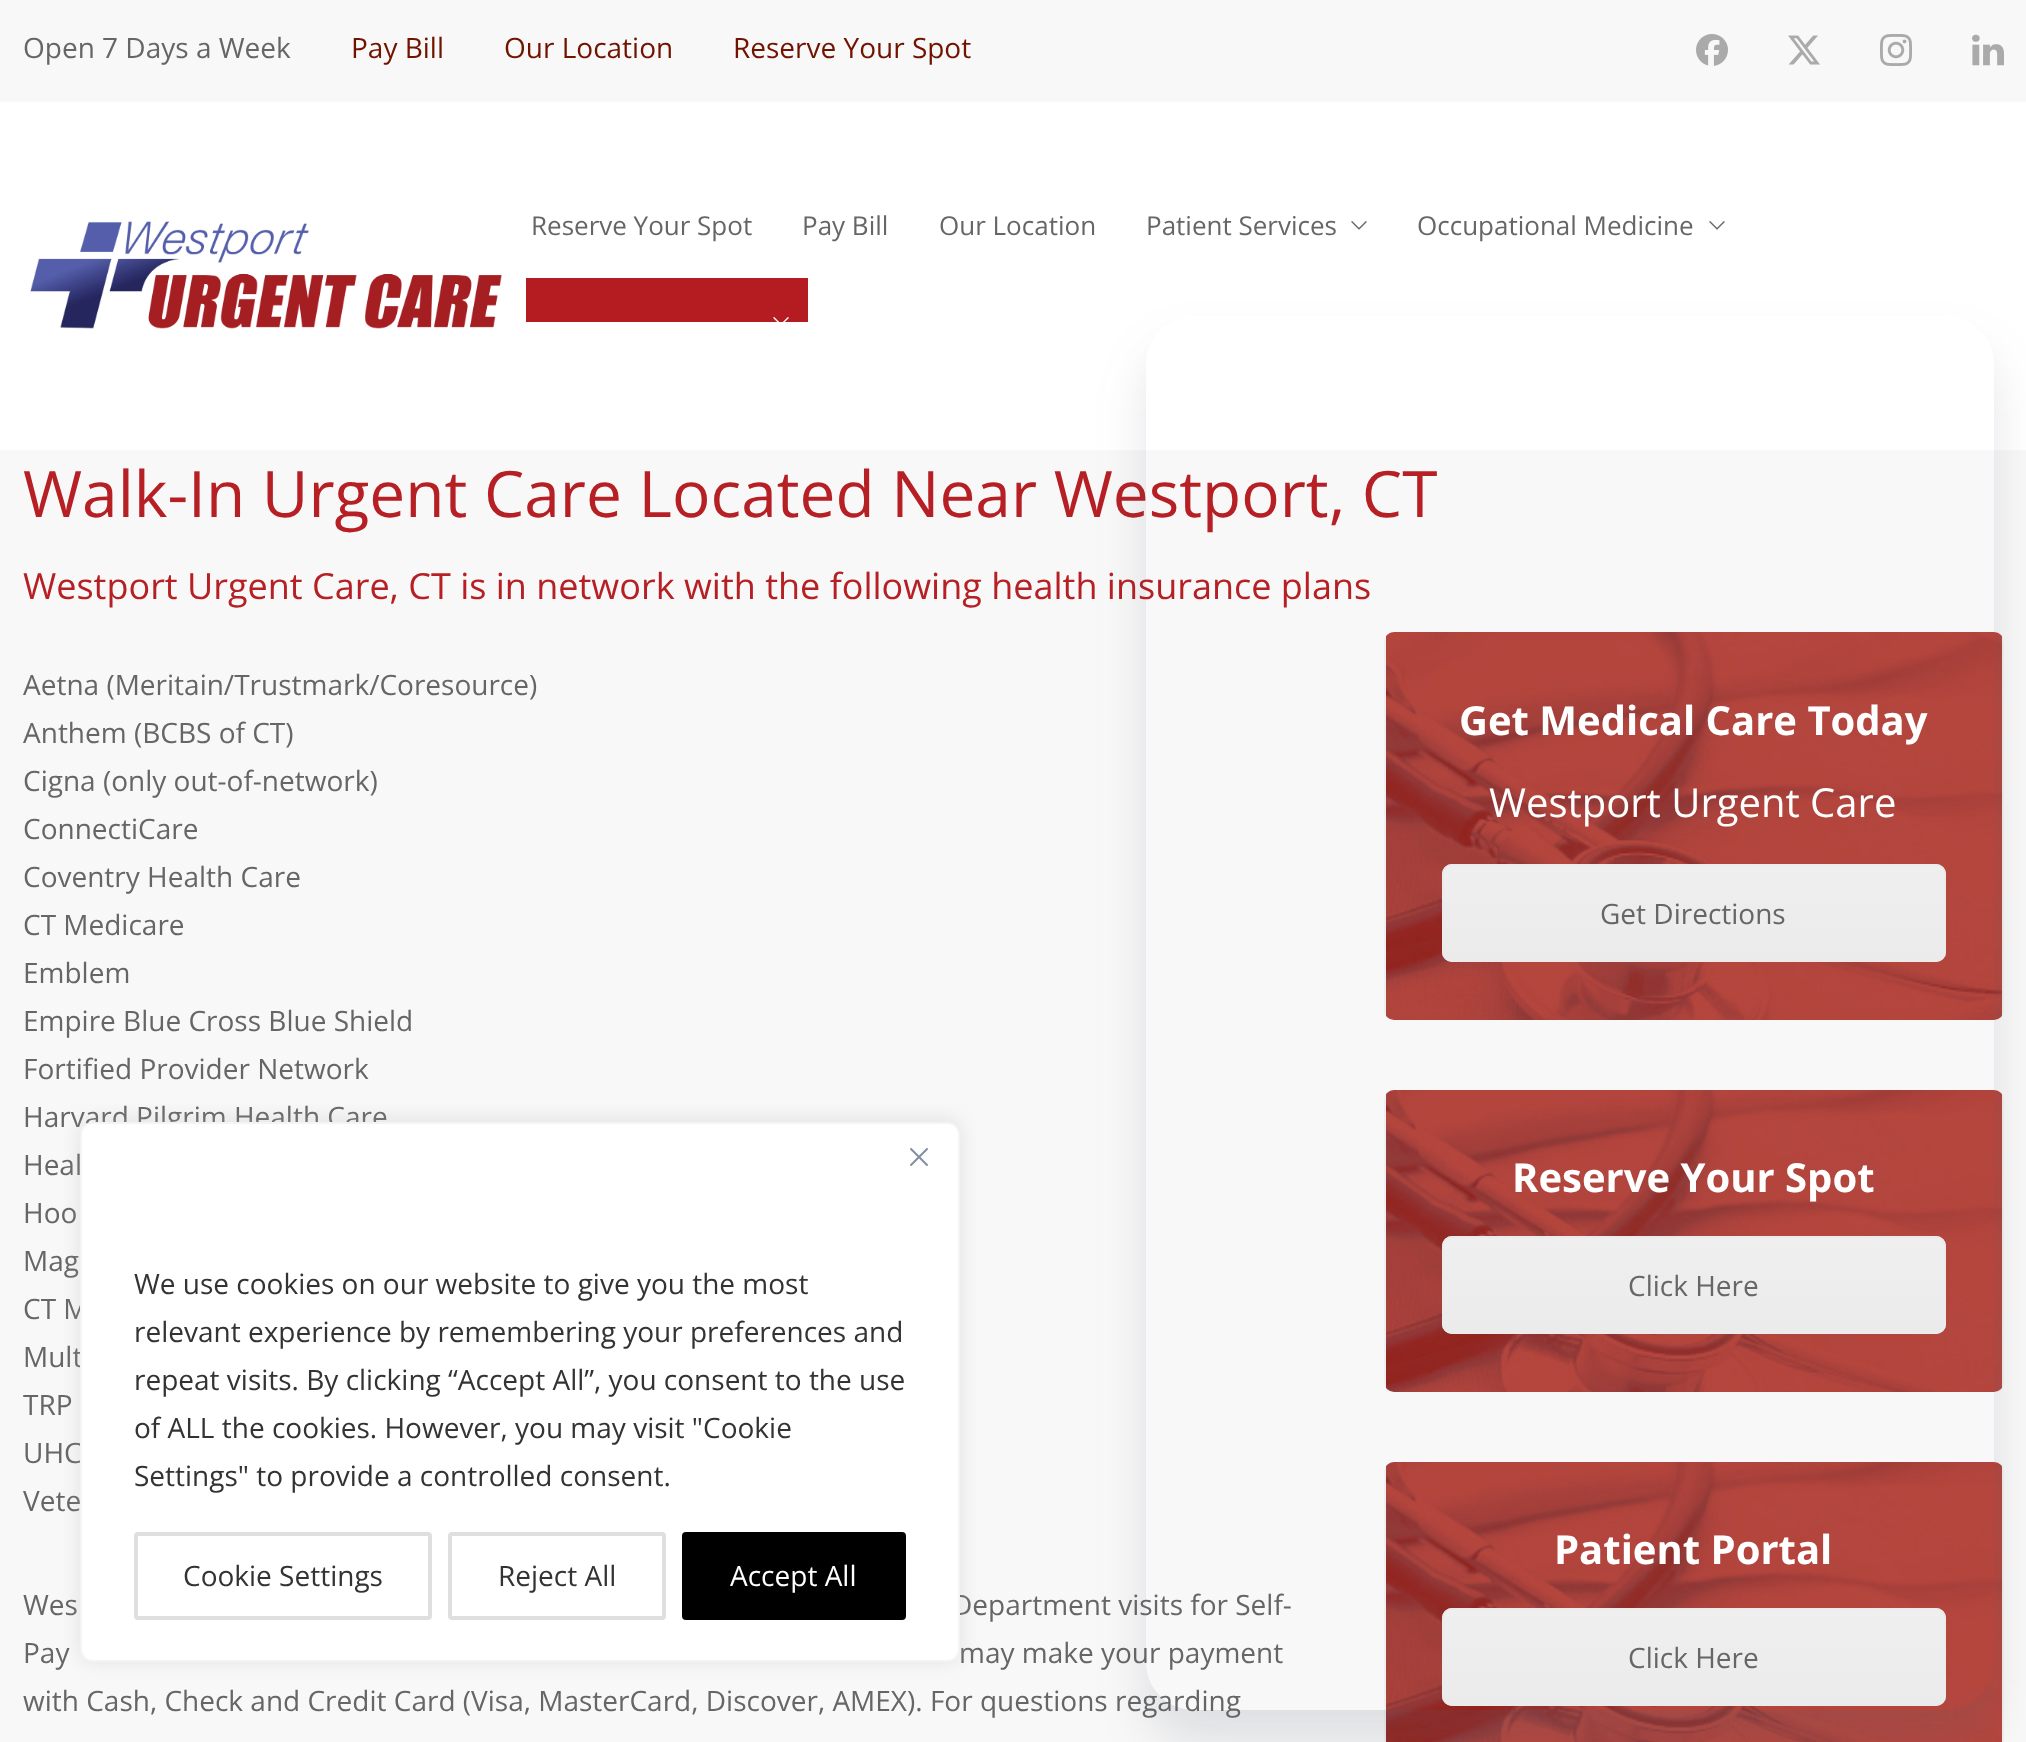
<!DOCTYPE html>
<meta charset="utf-8">
<style>body { margin: 0 } canvas { display: block }</style>
<canvas id="canvas" width="2026" height="1742"></canvas>
<script type="module">
  const canvas = document.getElementById("canvas");
  const g = canvas.getContext("2d");
  g.miterLimit = 4;
  g.fontKerning = "normal";
  function drawText(s, x, y, [font, color]) {
    g.font = font;
    g.fillStyle = color;
    g.fillText(s, x, y);
  }
  function fillBox(x, y, w, h, color) {
    g.fillStyle = color;
    g.fillRect(x, y, w, h);
  }
  function fillRounded(x, y, w, h, r, color) {
    g.fillStyle = color;
    g.beginPath();
    g.roundRect(x, y, w, h, r);
    g.fill();
  }
  async function drawPicture(src, x, y, w, h) {
    const img = new Image();
    img.src = src;
    await img.decode();
    g.drawImage(img, x, y, w, h);
  }
  let gradient;

  const s1 = ["28px Open Sans", "#666666"];
  const s2 = ["28px Open Sans", "#701400"];
  const s3 = ["26px Open Sans", "#666666"];
  const s4 = ["64px Open Sans", "#B62025"];
  const s5 = ["36px Open Sans", "#B62025"];
  const s6 = ["bold 40px Open Sans", "#FFFFFF"];
  const s7 = ["40px Open Sans", "#FFFFFF"];
  const s8 = ["28px Open Sans", "#333333"];
  const s9 = ["28px Open Sans", "#FFFFFF"];

  fillBox(0, 0, 2026, 1742, "#F8F8F8");
  drawText("Open 7 Days a Week", 23, 58, s1);
  drawText("Pay Bill", 351, 58, s2);
  drawText("Our Location", 504, 58, s2);
  drawText("Reserve Your Spot", 733, 58, s2);
  await drawPicture("pic1.png", 1696, 34, 32, 32);
  await drawPicture("pic2.png", 1788, 35, 32, 30);
  await drawPicture("pic3.png", 1880, 34, 32, 32);
  await drawPicture("pic4.png", 1972, 34, 32, 32);
  fillBox(0, 102, 2026, 348, "#FFFFFF");
  await drawPicture("pic5.png", 30, 221, 472, 108);
  drawText("Reserve Your Spot", 531, 235, s3);
  drawText("Pay Bill", 802, 235, s3);
  drawText("Our Location", 939, 235, s3);
  drawText("Patient Services", 1146, 235, s3);
  await drawPicture("pic6.png", 1351, 221, 16, 9);
  drawText("Occupational Medicine", 1417, 235, s3);
  await drawPicture("pic6.png", 1709, 221, 16, 9);
  fillBox(526, 278, 282, 44, "#B51C21");
  await drawPicture("pic7.png", 773, 317, 16, 5);
  drawText("Walk-In Urgent Care Located Near Westport, CT", 23, 517, s4);
  drawText("Westport Urgent Care, CT is in network with the following health insurance plans", 23, 599, s5);
  drawText("Aetna (Meritain/Trustmark/Coresource)", 23, 695, s1);
  drawText("Anthem (BCBS of CT)", 23, 743, s1);
  drawText("Cigna (only out-of-network)", 23, 791, s1);
  drawText("ConnectiCare", 23, 839, s1);
  drawText("Coventry Health Care", 23, 887, s1);
  drawText("CT Medicare", 23, 935, s1);
  drawText("Emblem", 23, 983, s1);
  drawText("Empire Blue Cross Blue Shield", 23, 1031, s1);
  drawText("Fortified Provider Network", 23, 1079, s1);
  drawText("Harvard Pilgrim Health Care", 23, 1127, s1);
  drawText("Heal", 23, 1175, s1);
  drawText("Hoo", 23, 1223, s1);
  drawText("Mag", 23, 1271, s1);
  drawText("CT M", 23, 1319, s1);
  drawText("Mult", 23, 1367, s1);
  drawText("TRP", 23, 1415, s1);
  drawText("UHC", 23, 1463, s1);
  drawText("Vete", 23, 1511, s1);
  drawText("Wes", 23, 1615, s1);
  drawText("Department visits for Self-", 952, 1615, s1);
  drawText("Pay", 23, 1663, s1);
  drawText("may make your payment", 959, 1663, s1);
  drawText("with Cash, Check and Credit Card (Visa, MasterCard, Discover, AMEX). For questions regarding", 23, 1711, s1);
  fillRounded(1384, 632, 620, 388, 10, "#F0F0F0");
  await drawPicture("pic8.png", 1386, 632, 616, 388);
  drawText("Get Medical Care Today", 1459, 735, s6);
  drawText("Westport Urgent Care", 1489, 817, s7);
  fillRounded(1442, 864, 504, 98, 10, "#EBEBEB");
  g.save();
  g.beginPath();
  g.roundRect(1442, 864, 504, 98, 10);
  g.clip();
  gradient = g.createLinearGradient(1694, 866, 1694, 960);
  gradient.addColorStop(0, "rgba(255, 255, 255, 0.2)");
  gradient.addColorStop(1, "rgba(255, 255, 255, 0.01)");
  g.fillStyle = gradient;
  g.fillRect(1442, 866, 504, 88);
  g.restore();
  g.beginPath();
  g.roundRect(1443, 865, 502, 96, 9);
  g.strokeStyle = "#EBEBEB";
  g.lineWidth = 2;
  g.stroke();
  drawText("Get Directions", 1600, 924, s1);
  fillRounded(1384, 1090, 620, 302, 10, "#F0F0F0");
  await drawPicture("pic9.png", 1386, 1090, 616, 302);
  drawText("Reserve Your Spot", 1512, 1192, s6);
  fillRounded(1442, 1236, 504, 98, 10, "#EBEBEB");
  g.save();
  g.beginPath();
  g.roundRect(1442, 1236, 504, 98, 10);
  g.clip();
  gradient = g.createLinearGradient(1694, 1238, 1694, 1332);
  gradient.addColorStop(0, "rgba(255, 255, 255, 0.2)");
  gradient.addColorStop(1, "rgba(255, 255, 255, 0.01)");
  g.fillStyle = gradient;
  g.fillRect(1442, 1238, 504, 88);
  g.restore();
  g.beginPath();
  g.roundRect(1443, 1237, 502, 96, 9);
  g.stroke();
  drawText("Click Here", 1628, 1296, s1);
  fillRounded(1384, 1462, 620, 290, 10, "#F0F0F0");
  await drawPicture("pic10.png", 1386, 1462, 616, 280);
  drawText("Patient Portal", 1554, 1564, s6);
  fillRounded(1442, 1608, 504, 98, 10, "#EBEBEB");
  g.save();
  g.beginPath();
  g.roundRect(1442, 1608, 504, 98, 10);
  g.clip();
  gradient = g.createLinearGradient(1694, 1610, 1694, 1704);
  gradient.addColorStop(0, "rgba(255, 255, 255, 0.2)");
  gradient.addColorStop(1, "rgba(255, 255, 255, 0.01)");
  g.fillStyle = gradient;
  g.fillRect(1442, 1610, 504, 88);
  g.restore();
  g.beginPath();
  g.roundRect(1443, 1609, 502, 96, 9);
  g.stroke();
  drawText("Click Here", 1628, 1668, s1);
  g.fillStyle = "rgba(172, 171, 171, 0.3)";
  g.filter = "blur(10px)";
  g.beginPath();
  g.roundRect(80, 1120, 880, 540, 12);
  g.fill();
  g.filter = "none";
  g.fillStyle = "#FFFFFF";
  g.beginPath();
  g.roundRect(81, 1123, 878, 538, 11);
  g.fill();
  g.strokeStyle = "#F4F4F4";
  g.stroke();
  await drawPicture("pic11.png", 910, 1148, 18, 18);
  drawText("We use cookies on our website to give you the most", 134, 1294, s8);
  drawText("relevant experience by remembering your preferences and", 134, 1342, s8);
  drawText("repeat visits. By clicking “Accept All”, you consent to the use", 134, 1390, s8);
  drawText("of ALL the cookies. However, you may visit \"Cookie", 134, 1438, s8);
  drawText("Settings\" to provide a controlled consent.", 134, 1486, s8);
  g.beginPath();
  g.roundRect(136, 1534, 294, 84, 2);
  g.strokeStyle = "#DEDFE0";
  g.lineWidth = 4;
  g.stroke();
  drawText("Cookie Settings", 183, 1586, s8);
  g.beginPath();
  g.roundRect(450, 1534, 214, 84, 2);
  g.stroke();
  drawText("Reject All", 498, 1586, s8);
  g.fillStyle = "#000000";
  g.beginPath();
  g.roundRect(684, 1534, 220, 84, 2);
  g.fill();
  g.strokeStyle = "#000000";
  g.stroke();
  drawText("Accept All", 730, 1586, s9);
  g.save();
  g.beginPath();
  g.moveTo(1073, 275);
  g.lineTo(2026, 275);
  g.lineTo(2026, 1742);
  g.lineTo(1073, 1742);
  g.closePath();
  g.moveTo(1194, 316);
  g.lineTo(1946, 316);
  g.bezierCurveTo(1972.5, 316, 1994, 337.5, 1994, 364);
  g.lineTo(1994, 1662);
  g.bezierCurveTo(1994, 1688.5, 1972.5, 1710, 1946, 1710);
  g.lineTo(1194, 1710);
  g.bezierCurveTo(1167.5, 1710, 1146, 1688.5, 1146, 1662);
  g.lineTo(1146, 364);
  g.bezierCurveTo(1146, 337.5, 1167.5, 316, 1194, 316);
  g.closePath();
  g.clip("evenodd");
  g.fillStyle = "rgba(84, 95, 111, 0.16)";
  g.filter = "blur(24px)";
  g.beginPath();
  g.roundRect(1146, 348, 848, 1394, 48);
  g.fill();
  g.filter = "none";
  g.restore();
</script>
